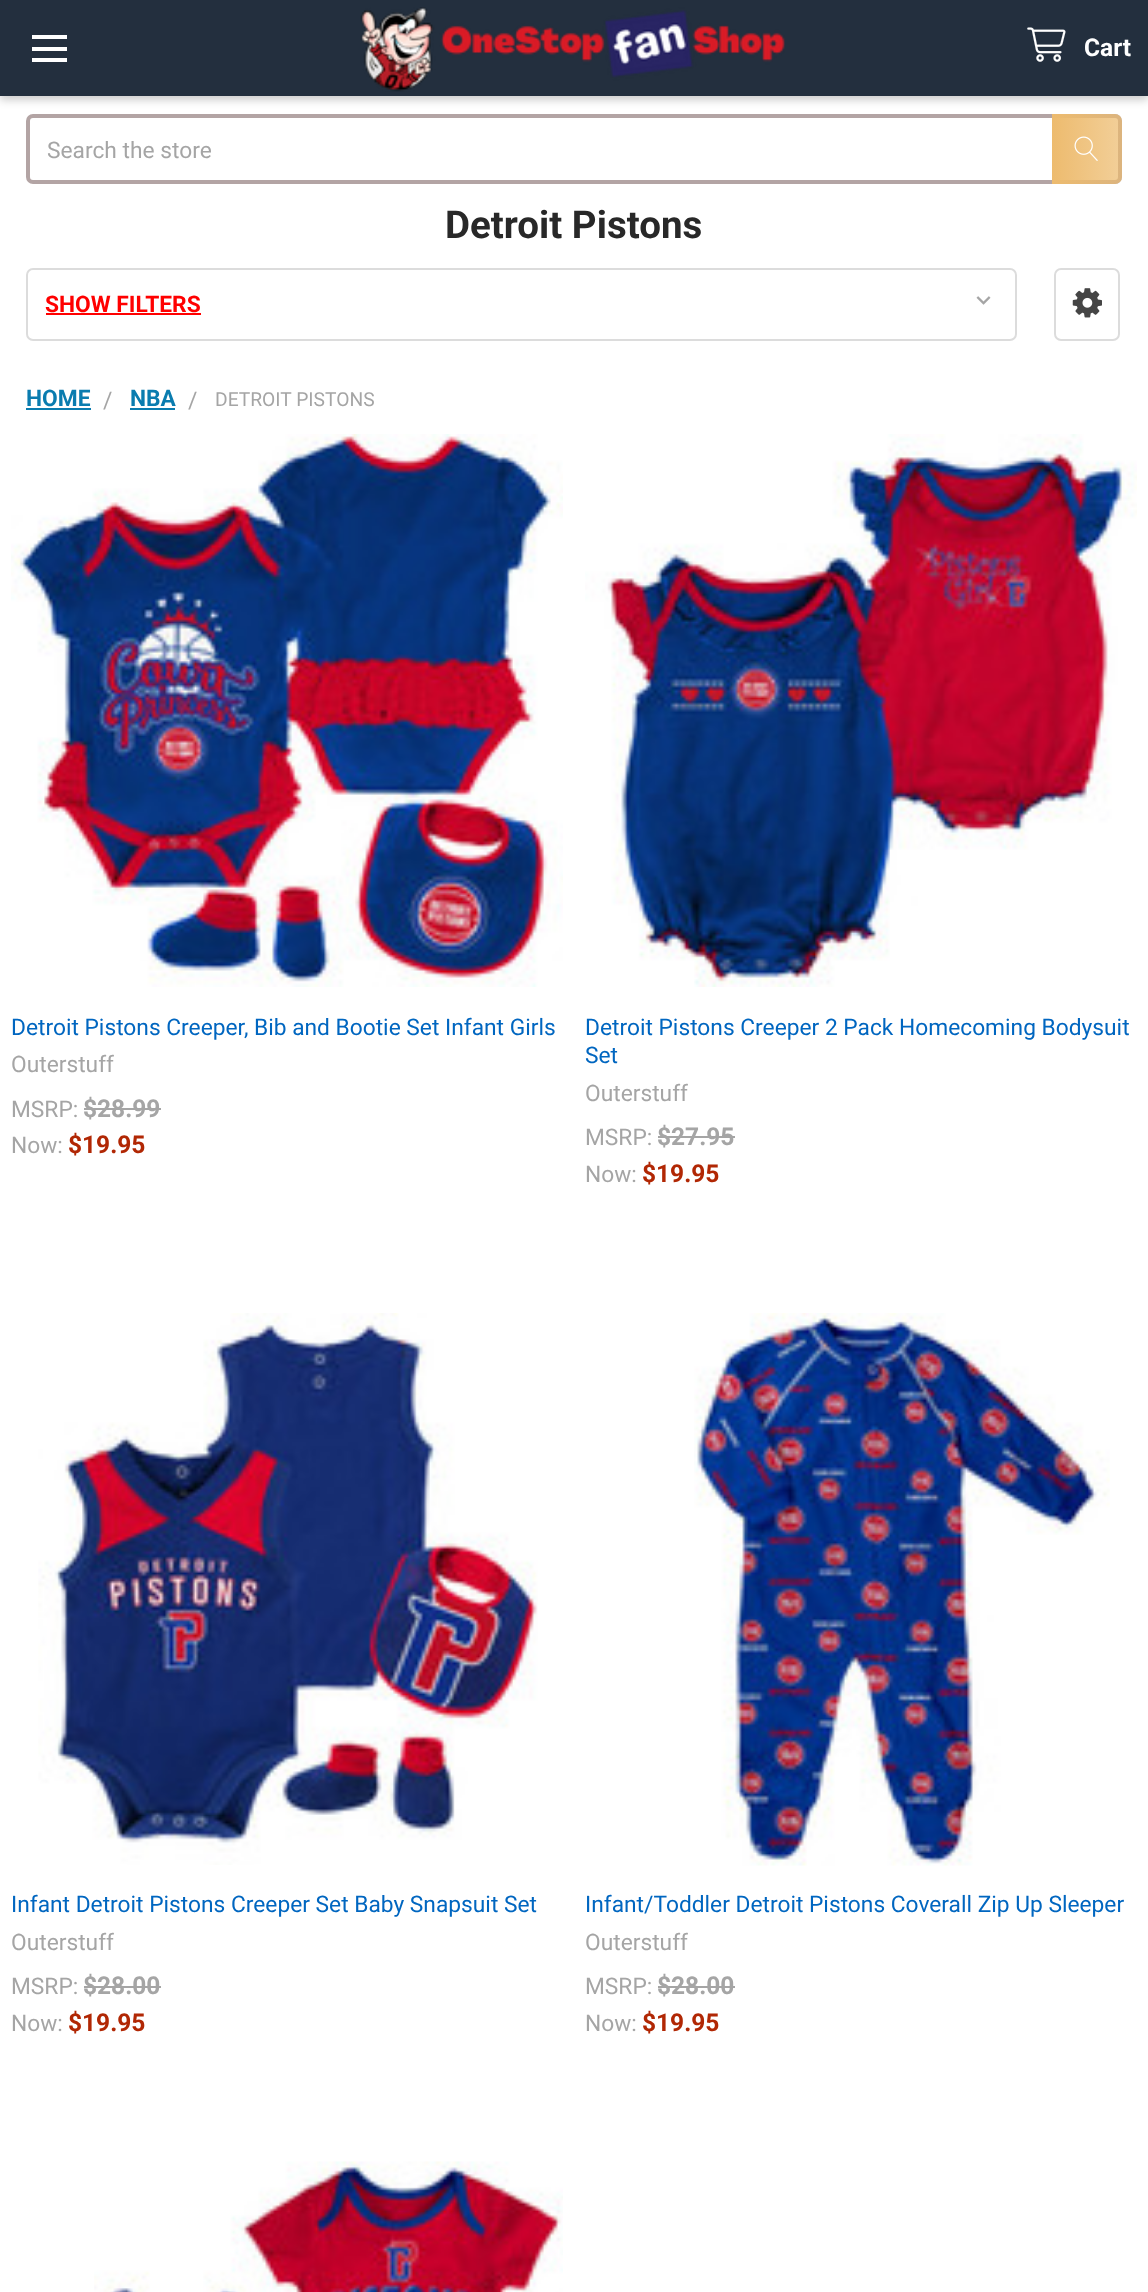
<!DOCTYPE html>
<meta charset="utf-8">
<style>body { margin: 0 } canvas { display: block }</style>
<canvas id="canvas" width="1148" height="2292"></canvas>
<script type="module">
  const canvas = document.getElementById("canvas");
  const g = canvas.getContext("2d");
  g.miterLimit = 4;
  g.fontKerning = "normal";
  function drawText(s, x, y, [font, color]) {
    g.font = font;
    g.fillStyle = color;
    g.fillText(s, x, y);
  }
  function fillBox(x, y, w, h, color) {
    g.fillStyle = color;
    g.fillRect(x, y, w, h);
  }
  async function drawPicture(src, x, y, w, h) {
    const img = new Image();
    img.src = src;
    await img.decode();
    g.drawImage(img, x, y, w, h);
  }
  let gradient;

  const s1 = ["bold 24.5px Roboto", "#FFFFFF"];
  const s2 = ["22.75px Roboto", "#A5A5A5"];
  const s3 = ["bold 38.5px Roboto", "#282828"];
  const s4 = ["bold 22.75px Roboto", "#FF0000"];
  const s5 = ["bold 22.75px Roboto", "#0A7CAF"];
  const s6 = ["19.25px Roboto", "#A5A5A5"];
  const s7 = ["22.75px Roboto", "#0066C0"];
  const s8 = ["bold 24.5px Roboto", "#A5A5A5"];
  const s9 = ["bold 24.5px Roboto", "#B12704"];

  fillBox(0, 0, 1148, 2292, "#FFFFFF");
  g.beginPath();
  g.roundRect(28, 116, 1092, 66, 5);
  g.strokeStyle = "#B3A4A4";
  g.lineWidth = 4;
  g.stroke();
  gradient = g.createLinearGradient(1052, 149, 1122, 149);
  gradient.addColorStop(0, "#EDBB6E");
  gradient.addColorStop(1, "rgba(237, 187, 110, 0.7)");
  g.fillStyle = gradient;
  g.beginPath();
  g.roundRect(1052, 114, 70, 70, [0, 7, 7, 0]);
  g.fill();
  g.fillStyle = "rgba(0, 0, 0, 0.2)";
  g.filter = "blur(4.5px)";
  g.beginPath();
  g.rect(0, 4, 1148, 96);
  g.fill();
  g.filter = "none";
  fillBox(0, 0, 1148, 96, "#232F3E");
  fillBox(32, 47, 35, 4, "#FFFFFF");
  fillBox(32, 35, 35, 4, "#FFFFFF");
  fillBox(32, 58, 35, 4, "#FFFFFF");
  await drawPicture("pic1.png", 360, 7, 425, 85);
  await drawPicture("pic2.png", 1027, 27, 39, 35);
  drawText("Cart", 1084, 56, s1);
  drawText("Search the store", 47, 158, s2);
  await drawPicture("pic3.png", 1074, 136, 24, 25);
  drawText("Detroit Pistons", 445, 238, s3);
  g.beginPath();
  g.roundRect(27, 269, 989, 71, 6);
  g.strokeStyle = "#DCDCDC";
  g.lineWidth = 2;
  g.stroke();
  drawText("SHOW FILTERS", 45, 312, s4);
  fillBox(46, 313, 155, 2, "#FF0000");
  await drawPicture("pic4.png", 976, 296, 15, 9);
  g.beginPath();
  g.roundRect(1055, 269, 64, 71, 6);
  g.stroke();
  await drawPicture("pic5.png", 1072, 288, 30, 30);
  drawText("HOME", 26, 406, s5);
  fillBox(26, 408, 65, 2, "#0A7CAF");
  drawText("/", 103, 408, s2);
  drawText("NBA", 130, 406, s5);
  fillBox(130, 408, 45, 2, "#0A7CAF");
  drawText("/", 188, 408, s2);
  drawText("DETROIT PISTONS", 215, 406, s6);
  await drawPicture("pic6.png", 11, 434, 552, 553);
  drawText("Detroit Pistons Creeper, Bib and Bootie Set Infant Girls", 11, 1035, s7);
  drawText("Outerstuff", 11, 1072, s2);
  drawText("MSRP:", 11, 1117, s2);
  drawText("$28.99", 83, 1117, s8);
  fillBox(84, 1108, 77, 2, "#A5A5A5");
  drawText("Now:", 11, 1153, s2);
  drawText("$19.95", 68, 1153, s9);
  await drawPicture("pic7.png", 585, 434, 552, 553);
  drawText("Detroit Pistons Creeper 2 Pack Homecoming Bodysuit", 585, 1035, s7);
  drawText("Set", 585, 1063, s7);
  drawText("Outerstuff", 585, 1101, s2);
  drawText("MSRP:", 585, 1145, s2);
  drawText("$27.95", 657, 1145, s8);
  fillBox(658, 1136, 77, 2, "#A5A5A5");
  drawText("Now:", 585, 1182, s2);
  drawText("$19.95", 642, 1182, s9);
  await drawPicture("pic8.png", 38, 1313, 500, 552);
  drawText("Infant Detroit Pistons Creeper Set Baby Snapsuit Set", 11, 1912, s7);
  drawText("Outerstuff", 11, 1950, s2);
  drawText("MSRP:", 11, 1994, s2);
  drawText("$28.00", 83, 1994, s8);
  fillBox(84, 1986, 77, 2, "#A5A5A5");
  drawText("Now:", 11, 2031, s2);
  drawText("$19.95", 68, 2031, s9);
  await drawPicture("pic9.png", 694, 1313, 416, 553);
  drawText("Infant/Toddler Detroit Pistons Coverall Zip Up Sleeper", 585, 1912, s7);
  drawText("Outerstuff", 585, 1950, s2);
  drawText("MSRP:", 585, 1994, s2);
  drawText("$28.00", 657, 1994, s8);
  fillBox(658, 1986, 77, 2, "#A5A5A5");
  drawText("Now:", 585, 2031, s2);
  drawText("$19.95", 642, 2031, s9);
  await drawPicture("pic10.png", 94, 2161, 469, 131);
</script>
